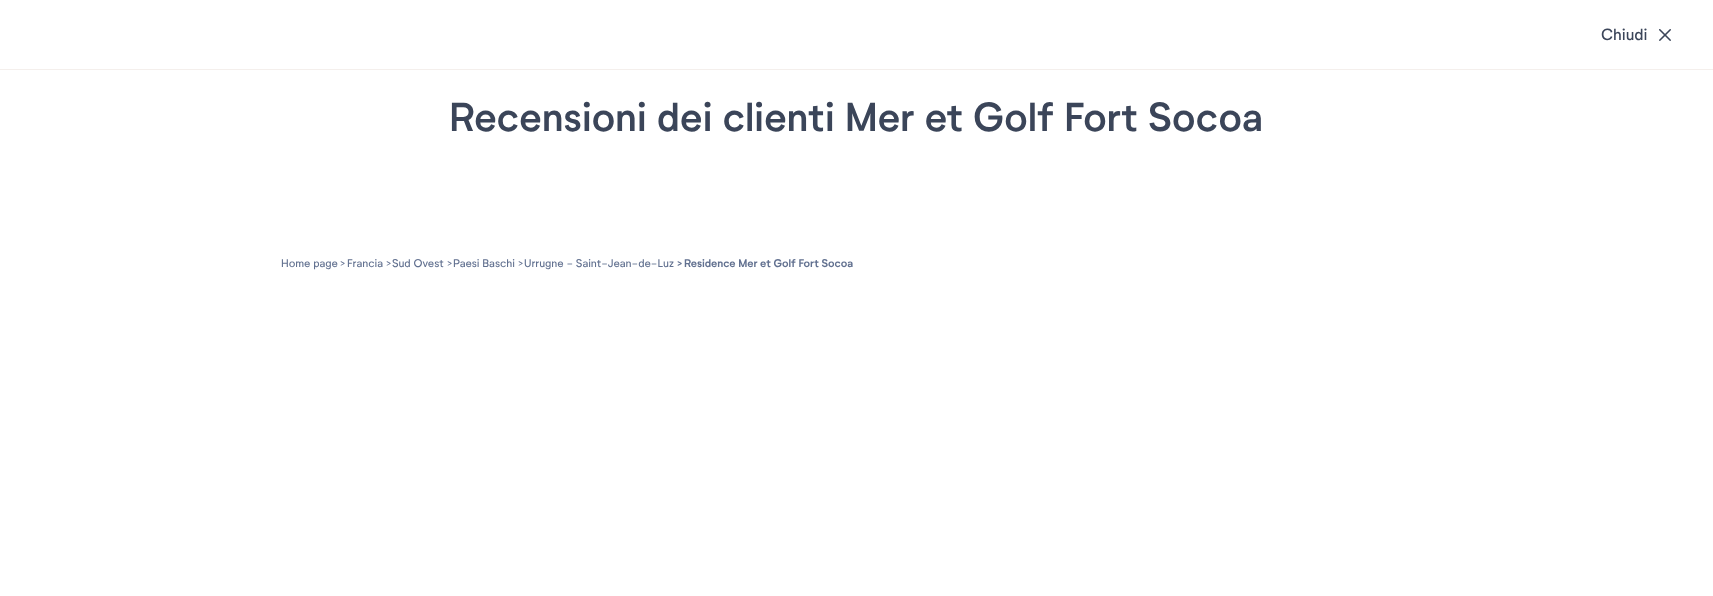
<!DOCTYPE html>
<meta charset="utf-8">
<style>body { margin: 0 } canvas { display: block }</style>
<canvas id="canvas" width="1713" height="596"></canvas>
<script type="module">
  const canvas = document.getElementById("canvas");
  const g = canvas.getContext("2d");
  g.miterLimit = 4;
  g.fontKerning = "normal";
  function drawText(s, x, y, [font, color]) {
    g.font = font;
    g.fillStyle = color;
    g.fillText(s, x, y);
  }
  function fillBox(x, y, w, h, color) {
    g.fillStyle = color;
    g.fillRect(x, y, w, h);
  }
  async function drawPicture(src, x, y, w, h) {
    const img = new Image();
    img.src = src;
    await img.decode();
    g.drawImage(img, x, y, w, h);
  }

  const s1 = ["16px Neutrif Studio", "#3B4559"];
  const s2 = ["500 40px Neutrif Studio", "#3B4559"];
  const s3 = ["11px Neutrif Studio", "#627190"];
  const s4 = ["10px Neutrif Studio", "#627190"];
  const s5 = ["600 10px Neutrif Studio", "#627190"];
  const s6 = ["600 11px Neutrif Studio", "#627190"];

  fillBox(0, 0, 1713, 596, "#FFFFFF");
  fillBox(0, 69, 1713, 1, "#F4EFEC");
  drawText("Chiudi", 1601, 40, s1);
  await drawPicture("pic1.png", 1659, 29, 12, 12);
  drawText("Recensioni dei clienti Mer et Golf Fort Socoa", 449, 131, s2);
  drawText("Home page", 281, 267, s3);
  drawText(">", 340, 266, s4);
  drawText("Francia", 347, 267, s3);
  drawText(">", 386, 266, s4);
  drawText("Sud Ovest", 392, 267, s3);
  drawText(">", 447, 266, s4);
  drawText("Paesi Baschi", 453, 267, s3);
  drawText(">", 518, 266, s4);
  drawText("Urrugne - Saint-Jean-de-Luz", 524, 267, s3);
  drawText(">", 677, 266, s5);
  drawText("Residence Mer et Golf Fort Socoa", 684, 267, s6);
</script>
